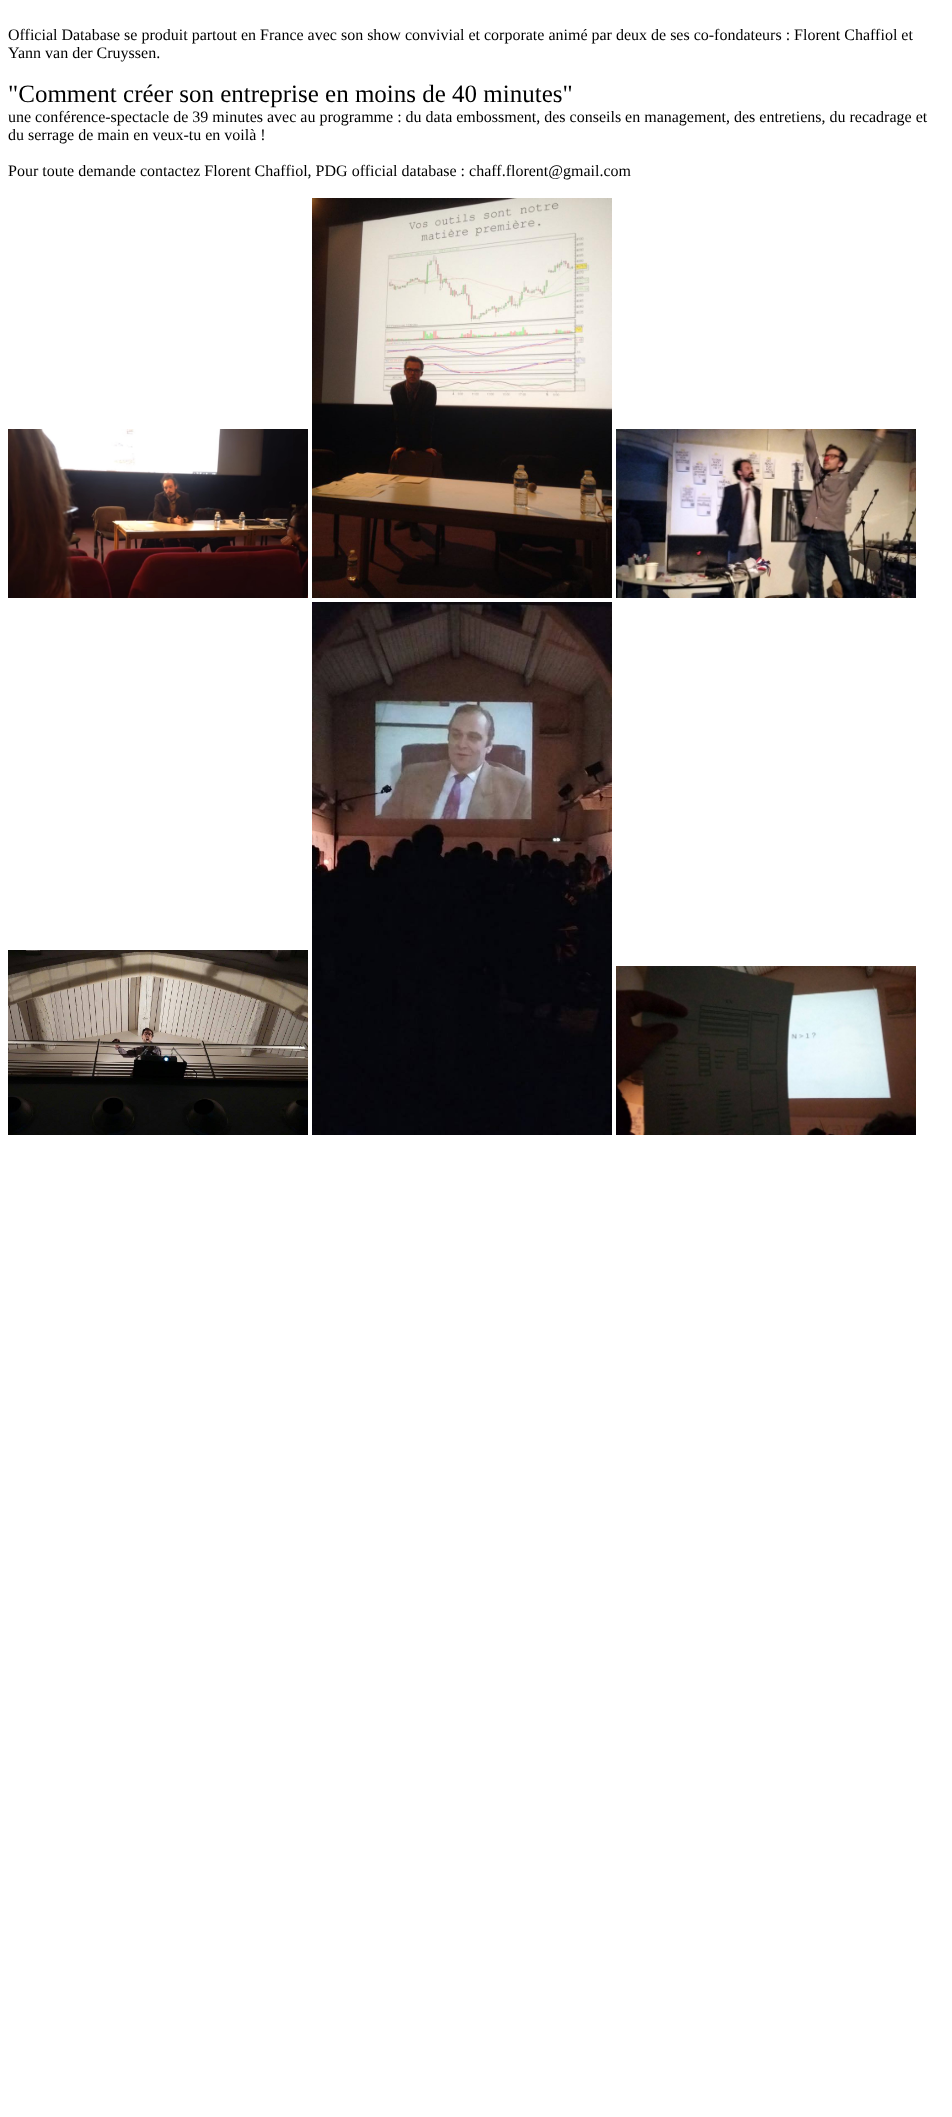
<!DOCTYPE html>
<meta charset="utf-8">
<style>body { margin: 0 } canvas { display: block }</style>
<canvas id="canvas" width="952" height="2117"></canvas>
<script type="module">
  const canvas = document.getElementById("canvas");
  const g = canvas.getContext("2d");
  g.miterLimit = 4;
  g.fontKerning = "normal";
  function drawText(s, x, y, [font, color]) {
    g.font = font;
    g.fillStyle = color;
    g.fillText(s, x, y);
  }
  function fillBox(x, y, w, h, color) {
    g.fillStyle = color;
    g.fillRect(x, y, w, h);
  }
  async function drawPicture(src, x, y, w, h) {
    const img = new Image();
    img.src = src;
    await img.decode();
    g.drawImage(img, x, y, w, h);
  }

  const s1 = ["16px Liberation Serif", "#000000"];
  const s2 = ["25px Liberation Serif", "#000000"];

  fillBox(0, 0, 952, 2117, "#FFFFFF");
  drawText("Official Database se produit partout en France avec son show convivial et corporate animé par deux de ses co-fondateurs : Florent Chaffiol et", 8, 40, s1);
  drawText("Yann van der Cruyssen.", 8, 58, s1);
  drawText("\"Comment créer son entreprise en moins de 40 minutes\"", 8, 102, s2);
  drawText("une conférence-spectacle de 39 minutes avec au programme : du data embossment, des conseils en management, des entretiens, du recadrage et", 8, 122, s1);
  drawText("du serrage de main en veux-tu en voilà !", 8, 140, s1);
  drawText("Pour toute demande contactez Florent Chaffiol, PDG official database : chaff.florent@gmail.com", 8, 176, s1);
  await drawPicture("pic1.png", 8, 429, 300, 169);
  await drawPicture("pic2.png", 312, 198, 300, 400);
  await drawPicture("pic3.png", 616, 429, 300, 169);
  await drawPicture("pic4.png", 8, 950, 300, 185);
  await drawPicture("pic5.png", 312, 602, 300, 533);
  await drawPicture("pic6.png", 616, 966, 300, 169);
</script>
